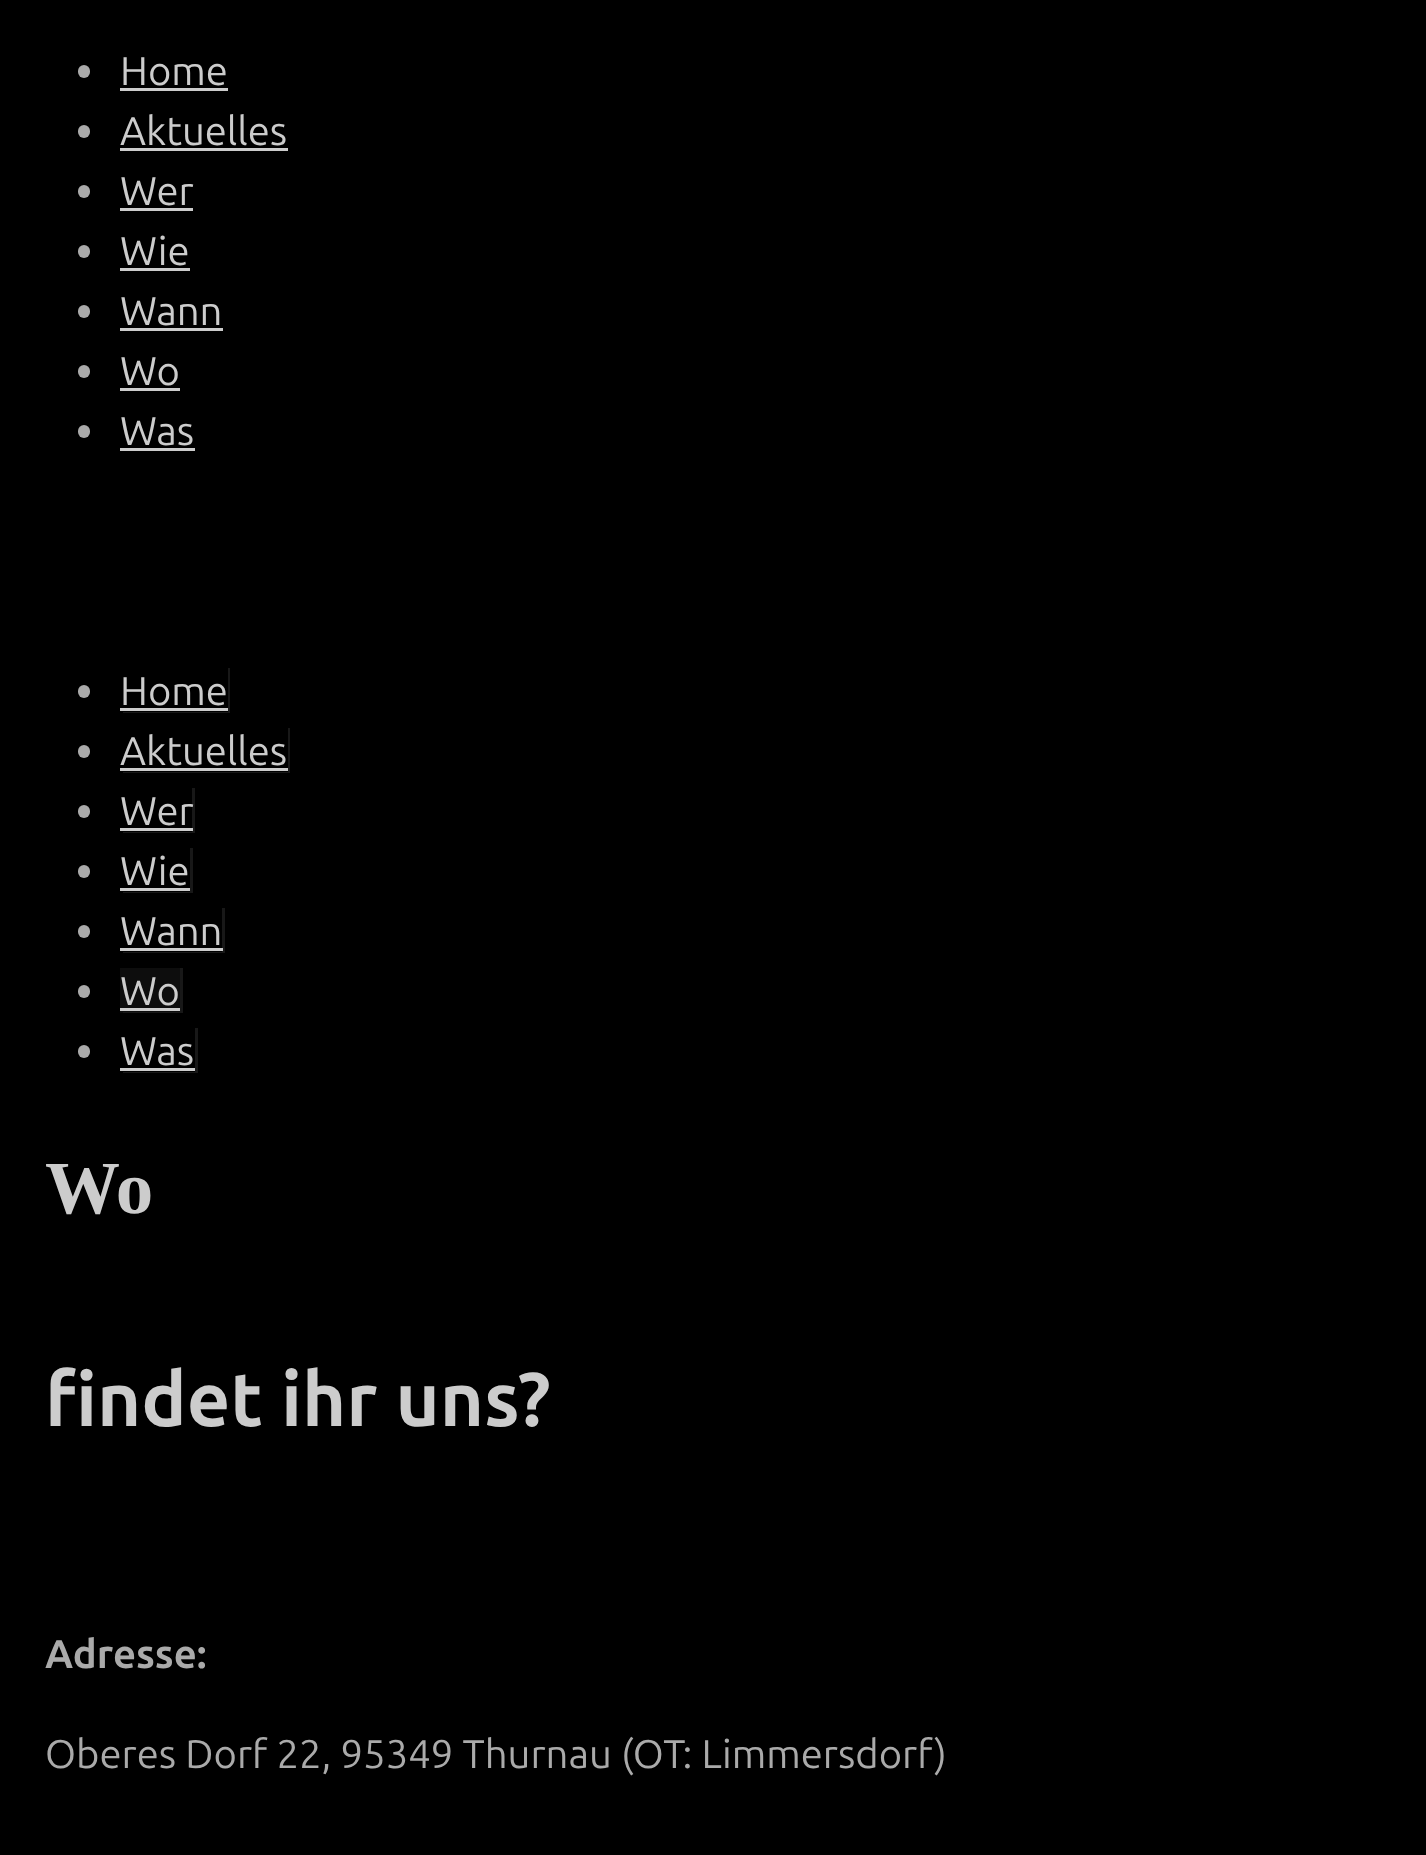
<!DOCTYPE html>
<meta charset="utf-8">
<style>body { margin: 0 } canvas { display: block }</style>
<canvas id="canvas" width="1426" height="1855"></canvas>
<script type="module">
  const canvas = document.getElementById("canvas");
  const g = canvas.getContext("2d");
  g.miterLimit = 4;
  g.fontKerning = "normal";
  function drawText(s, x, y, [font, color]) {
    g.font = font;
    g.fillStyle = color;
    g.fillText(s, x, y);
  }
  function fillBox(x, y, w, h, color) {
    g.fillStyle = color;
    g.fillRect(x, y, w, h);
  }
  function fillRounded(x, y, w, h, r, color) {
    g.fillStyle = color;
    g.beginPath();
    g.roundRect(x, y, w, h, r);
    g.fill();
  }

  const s1 = ["40px Ubuntu", "#CCCCCC"];
  const s2 = ["bold 75px Liberation Serif", "#CCCCCC"];
  const s3 = ["bold 75.75px Ubuntu", "#CCCCCC"];
  const s4 = ["bold 40px Ubuntu", "#AAAAAA"];
  const s5 = ["40px Ubuntu", "#AAAAAA"];

  fillBox(0, 0, 1426, 1855, "#000000");
  fillRounded(78, 65, 12, 13, 6, "#AAAAAA");
  drawText("Home", 120, 85, s1);
  fillBox(120, 88, 108, 3, "#CCCCCC");
  fillRounded(78, 125, 12, 13, 6, "#AAAAAA");
  drawText("Aktuelles", 120, 145, s1);
  fillBox(120, 148, 168, 3, "#CCCCCC");
  fillRounded(78, 185, 12, 13, 6, "#AAAAAA");
  drawText("Wer", 120, 205, s1);
  fillBox(120, 208, 73, 3, "#CCCCCC");
  fillRounded(78, 245, 12, 13, 6, "#AAAAAA");
  drawText("Wie", 120, 265, s1);
  fillBox(120, 268, 70, 3, "#CCCCCC");
  fillRounded(78, 305, 12, 13, 6, "#AAAAAA");
  drawText("Wann", 120, 325, s1);
  fillBox(120, 328, 103, 3, "#CCCCCC");
  fillRounded(78, 365, 12, 13, 6, "#AAAAAA");
  drawText("Wo", 120, 385, s1);
  fillBox(120, 388, 60, 3, "#CCCCCC");
  fillRounded(78, 425, 12, 13, 6, "#AAAAAA");
  drawText("Was", 120, 445, s1);
  fillBox(120, 448, 75, 3, "#CCCCCC");
  fillRounded(78, 685, 12, 13, 6, "#AAAAAA");
  g.fillStyle = "#181818";
  g.beginPath();
  g.moveTo(123, 712);
  g.lineTo(123, 713);
  g.lineTo(230, 713);
  g.lineTo(230, 668);
  g.lineTo(228, 668);
  g.lineTo(228, 712);
  g.closePath();
  g.fill();
  drawText("Home", 120, 705, s1);
  fillBox(120, 708, 108, 3, "#CCCCCC");
  fillRounded(78, 745, 12, 13, 6, "#AAAAAA");
  g.fillStyle = "#181818";
  g.beginPath();
  g.moveTo(123, 772);
  g.lineTo(123, 773);
  g.lineTo(290, 773);
  g.lineTo(290, 728);
  g.lineTo(288, 728);
  g.lineTo(288, 772);
  g.closePath();
  g.fill();
  drawText("Aktuelles", 120, 765, s1);
  fillBox(120, 768, 168, 3, "#CCCCCC");
  fillRounded(78, 805, 12, 13, 6, "#AAAAAA");
  g.fillStyle = "#181818";
  g.beginPath();
  g.moveTo(123, 832);
  g.lineTo(123, 833);
  g.lineTo(195, 833);
  g.lineTo(195, 788);
  g.lineTo(192, 788);
  g.lineTo(192, 832);
  g.closePath();
  g.fill();
  drawText("Wer", 120, 825, s1);
  fillBox(120, 828, 73, 3, "#CCCCCC");
  fillRounded(78, 865, 12, 13, 6, "#AAAAAA");
  g.fillStyle = "#181818";
  g.beginPath();
  g.moveTo(123, 892);
  g.lineTo(123, 893);
  g.lineTo(193, 893);
  g.lineTo(193, 848);
  g.lineTo(190, 848);
  g.lineTo(190, 892);
  g.closePath();
  g.fill();
  drawText("Wie", 120, 885, s1);
  fillBox(120, 888, 70, 3, "#CCCCCC");
  fillRounded(78, 925, 12, 13, 6, "#AAAAAA");
  g.fillStyle = "#181818";
  g.beginPath();
  g.moveTo(123, 952);
  g.lineTo(123, 953);
  g.lineTo(225, 953);
  g.lineTo(225, 908);
  g.lineTo(222, 908);
  g.lineTo(222, 952);
  g.closePath();
  g.fill();
  drawText("Wann", 120, 945, s1);
  fillBox(120, 948, 103, 3, "#CCCCCC");
  fillRounded(78, 985, 12, 13, 6, "#AAAAAA");
  fillBox(120, 968, 60, 45, "#0D0D0D");
  g.fillStyle = "#181818";
  g.beginPath();
  g.moveTo(123, 1012);
  g.lineTo(123, 1013);
  g.lineTo(183, 1013);
  g.lineTo(183, 968);
  g.lineTo(180, 968);
  g.lineTo(180, 1012);
  g.closePath();
  g.fill();
  drawText("Wo", 120, 1005, s1);
  fillBox(120, 1008, 60, 3, "#CCCCCC");
  fillRounded(78, 1045, 12, 13, 6, "#AAAAAA");
  g.fillStyle = "#181818";
  g.beginPath();
  g.moveTo(123, 1072);
  g.lineTo(123, 1073);
  g.lineTo(198, 1073);
  g.lineTo(198, 1028);
  g.lineTo(195, 1028);
  g.lineTo(195, 1072);
  g.closePath();
  g.fill();
  drawText("Was", 120, 1065, s1);
  fillBox(120, 1068, 75, 3, "#CCCCCC");
  drawText("Wo", 45, 1213, s2);
  drawText("findet ihr uns?", 45, 1426, s3);
  drawText("Adresse:", 45, 1668, s4);
  drawText("Oberes Dorf 22, 95349 Thurnau (OT: Limmersdorf)", 45, 1768, s5);
</script>
